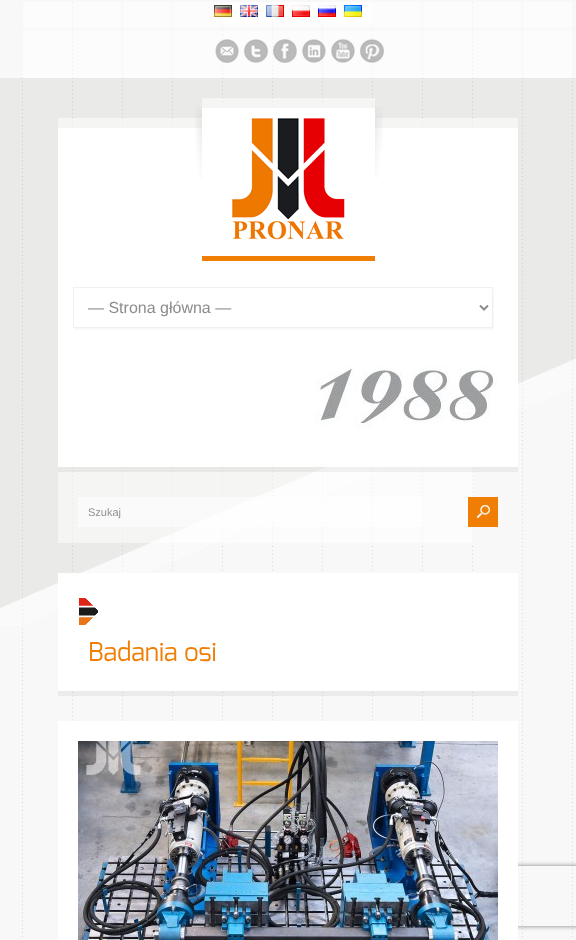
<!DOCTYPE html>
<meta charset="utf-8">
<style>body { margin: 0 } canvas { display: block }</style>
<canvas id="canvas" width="576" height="940"></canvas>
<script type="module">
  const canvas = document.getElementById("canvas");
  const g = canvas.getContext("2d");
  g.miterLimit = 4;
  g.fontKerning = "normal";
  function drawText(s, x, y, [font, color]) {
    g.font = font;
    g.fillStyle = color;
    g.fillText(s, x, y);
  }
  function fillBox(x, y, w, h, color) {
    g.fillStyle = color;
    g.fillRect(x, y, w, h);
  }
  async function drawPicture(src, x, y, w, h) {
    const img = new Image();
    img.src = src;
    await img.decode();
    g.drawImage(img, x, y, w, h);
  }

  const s1 = ["16px Liberation Sans", "#8C8C8C"];
  const s2 = ["11px Liberation Sans", "#929292"];
  const s3 = ["26px Exo", "#F07E05"];

  fillBox(0, 0, 576, 940, "#FFFFFF");
  await drawPicture("pic1.png", 0, 0, 576, 940);
  fillBox(22, 2, 551, 26, "rgba(255, 255, 255, 0.5)");
  fillBox(222, 2, 151, 22, "rgba(255, 255, 255, 0.5)");
  await drawPicture("pic2.png", 214, 5, 18, 12);
  await drawPicture("pic3.png", 240, 5, 18, 12);
  await drawPicture("pic4.png", 266, 5, 18, 12);
  await drawPicture("pic5.png", 292, 5, 18, 12);
  await drawPicture("pic6.png", 318, 5, 18, 12);
  await drawPicture("pic7.png", 344, 5, 18, 12);
  fillBox(22, 30, 551, 48, "rgba(255, 255, 255, 0.5)");
  await drawPicture("pic8.png", 215, 39, 24, 24);
  await drawPicture("pic9.png", 244, 39, 24, 24);
  await drawPicture("pic10.png", 273, 39, 24, 24);
  await drawPicture("pic11.png", 302, 39, 24, 24);
  await drawPicture("pic12.png", 331, 39, 24, 24);
  await drawPicture("pic13.png", 360, 39, 24, 24);
  await drawPicture("pic14.png", 0, 78, 576, 548);
  fillBox(58, 118, 460, 10, "rgba(255, 255, 255, 0.5)");
  fillBox(58, 128, 460, 339, "#FFFFFF");
  await drawPicture("pic15.png", 195, 106, 7, 73);
  fillBox(202, 256, 173, 5, "#F07E05");
  fillBox(202, 98, 173, 10, "rgba(255, 255, 255, 0.5)");
  fillBox(202, 108, 173, 20, "#FFFFFF");
  await drawPicture("pic16.png", 232, 118, 113, 122);
  await drawPicture("pic17.png", 375, 106, 8, 73);
  g.fillStyle = "#F9F9F9";
  g.beginPath();
  g.moveTo(74, 328);
  g.lineTo(74, 330);
  g.lineTo(494, 330);
  g.lineTo(494, 289);
  g.lineTo(493, 289);
  g.lineTo(493, 328);
  g.closePath();
  g.fill();
  g.strokeStyle = "#F0F0F0";
  g.strokeRect(73.5, 287.5, 419, 40);
  g.beginPath();
  g.moveTo(480, 305.5);
  g.lineTo(484, 309.5);
  g.lineTo(488, 305.5);
  g.strokeStyle = "#8C8C8C";
  g.lineWidth = 2;
  g.stroke();
  drawText("— Strona główna —", 88, 313, s1);
  await drawPicture("pic18.png", 315, 366, 183, 63);
  fillBox(58, 467, 415, 76, "rgba(255, 255, 255, 0.5)");
  fillBox(58, 467, 460, 5, "rgba(0, 0, 0, 0.05)");
  fillBox(78, 497, 345, 30, "rgba(255, 255, 255, 0.5)");
  drawText("Szukaj", 88, 516, s2);
  fillBox(468, 497, 30, 30, "#F07E05");
  await drawPicture("pic19.png", 477, 505, 13, 13);
  fillBox(58, 691, 460, 5, "rgba(0, 0, 0, 0.05)");
  fillBox(58, 573, 460, 118, "#FFFFFF");
  await drawPicture("pic20.png", 79, 598, 19, 27);
  drawText("Badania osi", 88, 661, s3);
  g.save();
  g.beginPath();
  g.moveTo(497, 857);
  g.lineTo(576, 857);
  g.lineTo(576, 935);
  g.lineTo(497, 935);
  g.closePath();
  g.moveTo(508, 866);
  g.lineTo(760, 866);
  g.bezierCurveTo(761, 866, 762, 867, 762, 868);
  g.lineTo(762, 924);
  g.bezierCurveTo(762, 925, 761, 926, 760, 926);
  g.lineTo(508, 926);
  g.bezierCurveTo(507, 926, 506, 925, 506, 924);
  g.lineTo(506, 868);
  g.bezierCurveTo(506, 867, 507, 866, 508, 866);
  g.closePath();
  g.clip("evenodd");
  g.fillStyle = "#808080";
  g.filter = "blur(2.5px)";
  g.beginPath();
  g.roundRect(506, 866, 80, 60, 2);
  g.fill();
  g.filter = "none";
  g.restore();
  fillBox(58, 721, 460, 219, "#FFFFFF");
  await drawPicture("pic21.png", 78, 741, 420, 199);
</script>
